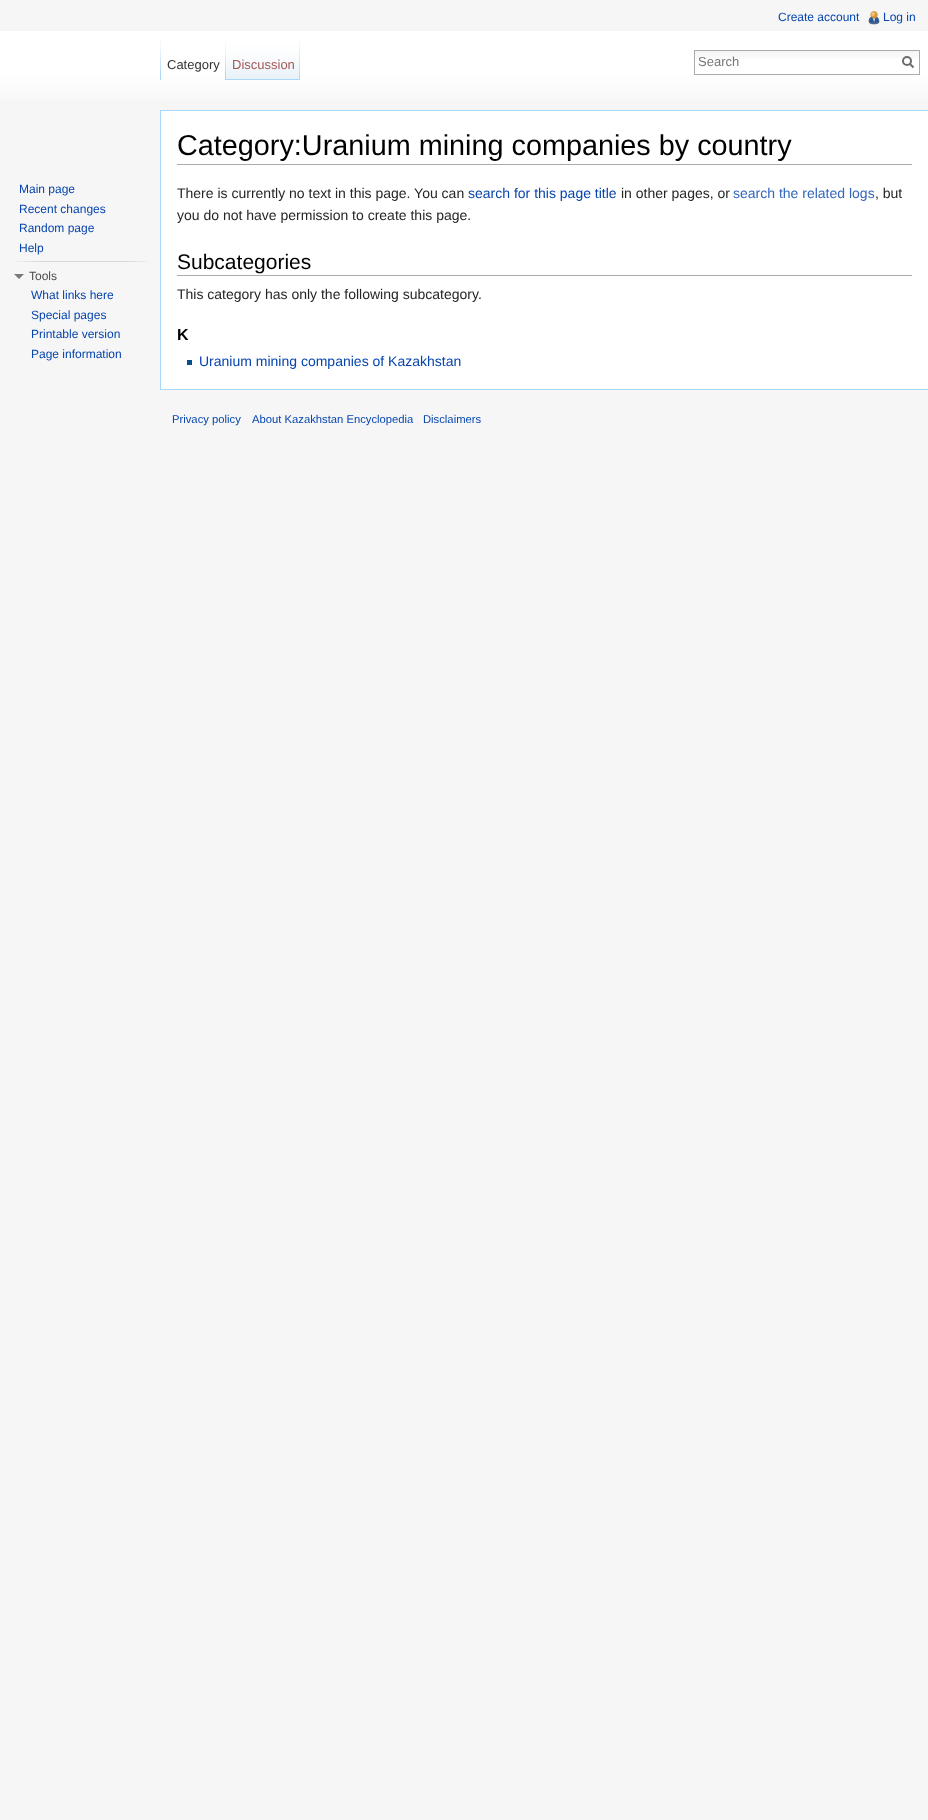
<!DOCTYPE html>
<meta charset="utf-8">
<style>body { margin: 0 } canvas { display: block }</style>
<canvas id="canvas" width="928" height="1820"></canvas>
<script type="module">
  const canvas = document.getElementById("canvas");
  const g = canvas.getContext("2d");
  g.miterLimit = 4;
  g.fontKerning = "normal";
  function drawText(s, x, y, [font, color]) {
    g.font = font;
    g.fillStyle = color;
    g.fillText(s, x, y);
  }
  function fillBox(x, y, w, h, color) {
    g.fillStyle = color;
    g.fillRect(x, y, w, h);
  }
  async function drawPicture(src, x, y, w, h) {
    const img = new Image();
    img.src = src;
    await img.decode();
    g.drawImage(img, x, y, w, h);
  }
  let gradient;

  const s1 = ["12px Liberation Sans", "#0645AD"];
  const s2 = ["13px Liberation Sans", "#333333"];
  const s3 = ["13px Liberation Sans", "#A55858"];
  const s4 = ["13px Liberation Sans", "#757575"];
  const s5 = ["12px Liberation Sans", "#4D4D4D"];
  const s6 = ["28.8px Liberation Sans", "#000000"];
  const s7 = ["14px Liberation Sans", "#252525"];
  const s8 = ["14px Liberation Sans", "#0645AD"];
  const s9 = ["14px Liberation Sans", "#3366BB"];
  const s10 = ["21px Liberation Sans", "#000000"];
  const s11 = ["bold 16px Liberation Sans", "#000000"];
  const s12 = ["11.25px Liberation Sans", "#0645AD"];

  fillBox(0, 0, 928, 1820, "#F6F6F6");
  drawText("Create account", 778, 21, s1);
  await drawPicture("pic1.png", 868, 11, 12, 14);
  drawText("Log in", 883, 21, s1);
  gradient = g.createLinearGradient(464, 31, 464, 111);
  gradient.addColorStop(0.5, "#FFFFFF");
  gradient.addColorStop(1, "#F6F6F6");
  g.fillStyle = gradient;
  g.fillRect(0, 31, 928, 69);
  await drawPicture("pic2.png", 160, 40, 1, 40);
  await drawPicture("pic3.png", 225, 40, 1, 40);
  drawText("Category", 167, 69, s2);
  await drawPicture("pic4.png", 226, 40, 74, 40);
  await drawPicture("pic5.png", 299, 40, 1, 39);
  drawText("Discussion", 232, 69, s3);
  await drawPicture("pic6.png", 695, 51, 224, 8);
  g.strokeStyle = "#AAAAAA";
  g.strokeRect(694.5, 50.5, 225, 24);
  drawText("Search", 698, 66, s4);
  g.beginPath();
  g.moveTo(913.5, 67.5);
  g.lineTo(909.5, 63.5);
  g.strokeStyle = "#6C6C6C";
  g.lineWidth = 2;
  g.stroke();
  g.beginPath();
  g.arc(907, 61, 4, 0, Math.PI * 2);
  g.stroke();
  drawText("Main page", 19, 193, s1);
  drawText("Recent changes", 19, 213, s1);
  drawText("Random page", 19, 232, s1);
  drawText("Help", 19, 252, s1);
  await drawPicture("pic7.png", 14, 261, 135, 1);
  g.fillStyle = "#797979";
  g.beginPath();
  g.moveTo(24, 274);
  g.lineTo(19, 279);
  g.lineTo(14, 274);
  g.closePath();
  g.fill();
  drawText("Tools", 29, 280, s5);
  drawText("What links here", 31, 299, s1);
  drawText("Special pages", 31, 319, s1);
  drawText("Printable version", 31, 338, s1);
  drawText("Page information", 31, 358, s1);
  fillBox(161, 111, 767, 278, "#FFFFFF");
  fillBox(160, 110, 768, 1, "#A7D7F9");
  fillBox(160, 389, 768, 1, "#A7D7F9");
  fillBox(160, 110, 1, 280, "#A7D7F9");
  fillBox(177, 164, 735, 1, "#AAAAAA");
  drawText("Category:Uranium mining companies by country", 177, 155, s6);
  drawText("There is currently no text in this page. You can", 177, 198, s7);
  drawText("search for this page title", 468, 198, s8);
  drawText("in other pages, or", 621, 198, s7);
  drawText("search the related logs", 733, 198, s9);
  drawText(", but", 875, 198, s7);
  drawText("you do not have permission to create this page.", 177, 220, s7);
  fillBox(177, 275, 735, 1, "#AAAAAA");
  drawText("Subcategories", 177, 269, s10);
  drawText("This category has only the following subcategory.", 177, 299, s7);
  drawText("K", 177, 340, s11);
  fillBox(187, 360, 5, 5, "#00528C");
  drawText("Uranium mining companies of Kazakhstan", 199, 366, s8);
  drawText("Privacy policy", 172, 423, s12);
  drawText("About Kazakhstan Encyclopedia", 252, 423, s12);
  drawText("Disclaimers", 423, 423, s12);
</script>
